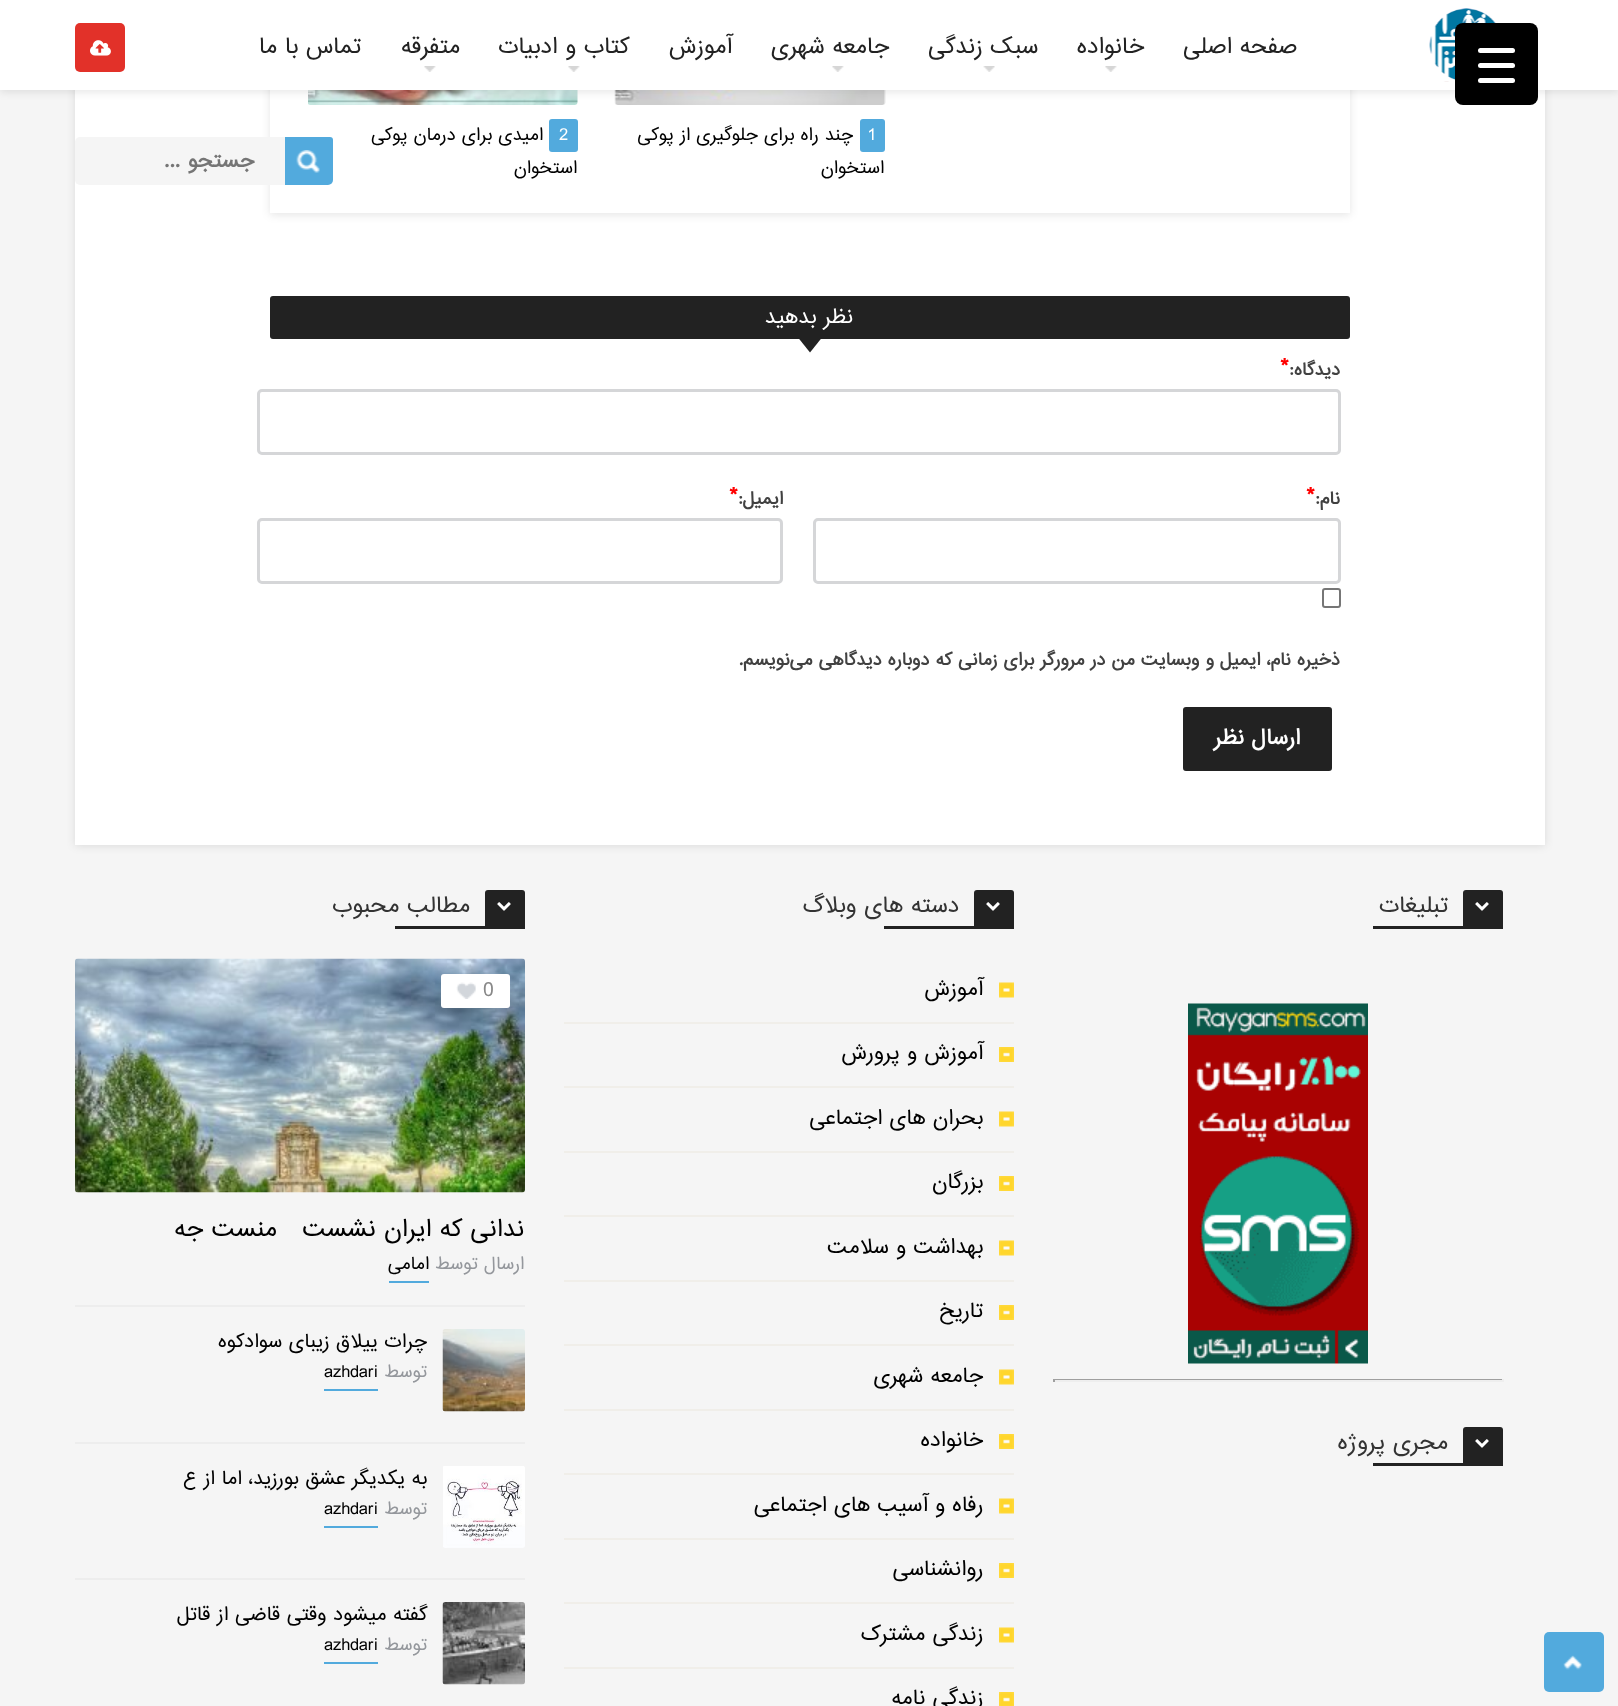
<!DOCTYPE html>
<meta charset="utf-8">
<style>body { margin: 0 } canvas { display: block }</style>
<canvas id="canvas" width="1618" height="1706"></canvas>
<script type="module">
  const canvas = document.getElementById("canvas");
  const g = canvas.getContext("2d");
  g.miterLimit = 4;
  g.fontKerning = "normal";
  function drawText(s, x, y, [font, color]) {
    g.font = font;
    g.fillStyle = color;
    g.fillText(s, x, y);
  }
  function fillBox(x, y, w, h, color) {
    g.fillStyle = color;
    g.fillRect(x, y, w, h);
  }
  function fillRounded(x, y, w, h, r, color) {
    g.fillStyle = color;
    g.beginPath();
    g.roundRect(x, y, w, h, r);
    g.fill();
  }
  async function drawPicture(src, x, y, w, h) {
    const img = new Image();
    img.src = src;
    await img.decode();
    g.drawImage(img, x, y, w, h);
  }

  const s1 = ["21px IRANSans", "#222222"];
  const s2 = ["bold 19.5px IRANSans", "#757575"];
  const s3 = ["16.5px IRANSans", "#FFFFFF"];
  const s4 = ["16.5px IRANSans", "#000000"];
  const s5 = ["19.5px IRANSans", "#FFFFFF"];
  const s6 = ["bold 16.5px IRANSans", "#414141"];
  const s7 = ["bold 22.5px IRANSans", "#FF0000"];
  const s8 = ["bold 20px IRANSans", "#FFFFFF"];
  const s9 = ["21px IRANSans", "#333333"];
  const s10 = ["19.5px IRANSans", "#000000"];
  const s11 = ["19.5px IRANSans", "#888888"];
  const s12 = ["22.5px IRANSans", "#000000"];
  const s13 = ["16.5px IRANSans", "#94979C"];
  const s14 = ["18px IRANSans", "#000000"];

  fillBox(0, 0, 1618, 1706, "#F5F5F5");
  g.fillStyle = "rgba(0, 0, 0, 0.1)";
  g.filter = "blur(4px)";
  g.beginPath();
  g.rect(75, -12, 1470, 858);
  g.fill();
  g.filter = "none";
  fillBox(75, 90, 1470, 755, "#FFFFFF");
  g.save();
  g.beginPath();
  g.moveTo(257, 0);
  g.lineTo(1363, 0);
  g.lineTo(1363, 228);
  g.lineTo(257, 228);
  g.closePath();
  g.moveTo(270, -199);
  g.lineTo(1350, -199);
  g.lineTo(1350, 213);
  g.lineTo(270, 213);
  g.closePath();
  g.clip("evenodd");
  g.fillStyle = "rgba(0, 0, 0, 0.1)";
  g.filter = "blur(4px)";
  g.beginPath();
  g.rect(270, -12, 1080, 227);
  g.fill();
  g.filter = "none";
  g.restore();
  await drawPicture("pic7.png", 614, 90, 272, 15);
  await drawPicture("pic8.png", 308, 90, 270, 15);
  g.fillStyle = "rgba(0, 0, 0, 0.1)";
  g.filter = "blur(4px)";
  g.beginPath();
  g.rect(0, 2, 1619, 90);
  g.fill();
  g.filter = "none";
  fillBox(0, 0, 1618, 90, "#FFFFFF");
  await drawPicture("pic1.png", 1429, 8, 67, 74);
  fillRounded(1455, 23, 83, 82, 8, "#000000");
  fillRounded(1478, 63, 37, 5, 2.5, "#FFFFFF");
  fillRounded(1478, 48, 37, 5, 2.5, "#FFFFFF");
  fillRounded(1478, 78, 37, 5, 2.5, "#FFFFFF");
  g.direction = "rtl";
  drawText("صفحه اصلی", 1297, 53, s1);
  drawText("خانواده", 1144, 53, s1);
  await drawPicture("pic2.png", 1105, 66, 12, 6);
  drawText("سبک زندگی", 1038, 53, s1);
  await drawPicture("pic3.png", 983, 66, 12, 6);
  drawText("جامعه شهری", 889, 53, s1);
  await drawPicture("pic2.png", 832, 66, 12, 6);
  drawText("آموزش", 732, 53, s1);
  drawText("کتاب و ادبیات", 629, 53, s1);
  await drawPicture("pic2.png", 568, 66, 12, 6);
  drawText("متفرقه", 460, 53, s1);
  await drawPicture("pic2.png", 424, 66, 12, 6);
  drawText("تماس با ما", 361, 53, s1);
  fillRounded(75, 23, 50, 49, 5, "#E23129");
  await drawPicture("pic4.png", 90, 40, 21, 16);
  g.fillStyle = "#52AADD";
  g.beginPath();
  g.roundRect(285, 137, 48, 48, [0, 3, 5, 0]);
  g.fill();
  await drawPicture("pic5.png", 296, 150, 24, 23);
  g.fillStyle = "#F5F5F5";
  g.beginPath();
  g.roundRect(75, 137, 210, 48, [5, 0, 0, 5]);
  g.fill();
  drawText("جستجو ...", 254, 167, s2);
  fillRounded(1544, 1632, 60, 60, 5, "#52AADD");
  await drawPicture("pic6.png", 1563, 1655, 19, 15);
  fillRounded(860, 119, 25, 33, 3, "#52AADD");
  g.direction = "ltr";
  drawText("1", 868, 140, s3);
  g.direction = "rtl";
  drawText("چند راه برای جلوگیری از پوکی", 853, 140, s4);
  drawText("استخوان", 884, 173, s4);
  fillRounded(549, 119, 29, 33, 3, "#52AADD");
  g.direction = "ltr";
  drawText("2", 559, 140, s3);
  g.direction = "rtl";
  drawText("امیدی برای درمان پوکی", 543, 140, s4);
  drawText("استخوان", 577, 173, s4);
  fillRounded(270, 296, 1080, 43, 3, "#222222");
  drawText("نظر بدهید", 853, 323, s5);
  g.fillStyle = "#222222";
  g.beginPath();
  g.moveTo(798, 337.5);
  g.lineTo(822, 337.5);
  g.lineTo(810, 352.5);
  g.closePath();
  g.fill();
  drawText("ديدگاه:", 1340, 375, s6);
  g.direction = "ltr";
  drawText("*", 1280, 375, s7);
  g.beginPath();
  g.roundRect(258.5, 390.5, 1081, 63, 3.5);
  g.strokeStyle = "#D5D6D8";
  g.lineWidth = 3;
  g.stroke();
  g.direction = "rtl";
  drawText("نام:", 1340, 504, s6);
  g.direction = "ltr";
  drawText("*", 1306, 504, s7);
  g.beginPath();
  g.roundRect(814.5, 519.5, 525, 63, 3.5);
  g.stroke();
  g.direction = "rtl";
  drawText("ایمیل:", 783, 504, s6);
  g.direction = "ltr";
  drawText("*", 729, 504, s7);
  g.beginPath();
  g.roundRect(258.5, 519.5, 523, 63, 3.5);
  g.stroke();
  g.beginPath();
  g.roundRect(1323, 589, 17, 18, 2);
  g.strokeStyle = "#767676";
  g.lineWidth = 2;
  g.stroke();
  g.direction = "rtl";
  drawText("ذخیره نام، ایمیل و وبسایت من در مرورگر برای زمانی که دوباره دیدگاهی می‌نویسم.", 1340, 665, s6);
  g.fillStyle = "#222222";
  g.beginPath();
  g.roundRect(1182, 706, 151, 66, 4);
  g.fill();
  g.strokeStyle = "#FFFFFF";
  g.stroke();
  drawText("ارسال نظر", 1300, 744, s8);
  g.fillStyle = "#222222";
  g.beginPath();
  g.roundRect(1463, 890, 40, 39, [3, 3, 0, 0]);
  g.fill();
  await drawPicture("pic9.png", 1475, 902, 14, 9);
  drawText("تبلیغات", 1448, 912, s9);
  fillBox(1373, 926, 90, 3, "#222222");
  await drawPicture("pic10.png", 1188, 1003, 180, 361);
  fillBox(1053, 1379, 450, 1, "#9F9F9F");
  fillBox(1502, 1379, 2, 3, "#EEEEEE");
  fillBox(1053, 1380, 450, 2, "#EEEEEE");
  fillBox(1053, 1379, 2, 3, "#9F9F9F");
  g.fillStyle = "#222222";
  g.beginPath();
  g.roundRect(974, 890, 40, 39, [3, 3, 0, 0]);
  g.fill();
  await drawPicture("pic9.png", 986, 902, 14, 9);
  drawText("دسته های وبلاگ", 959, 912, s9);
  fillBox(884, 926, 90, 3, "#222222");
  await drawPicture("pic11.png", 999, 982, 15, 16);
  fillBox(564, 1022, 450, 2, "#F0EEE9");
  drawText("آموزش", 983, 995, s10);
  await drawPicture("pic12.png", 999, 1047, 15, 15);
  fillBox(564, 1086, 450, 2, "#F0EEE9");
  drawText("آموزش و پرورش", 983, 1059, s10);
  await drawPicture("pic11.png", 999, 1111, 15, 16);
  fillBox(564, 1151, 450, 2, "#F0EEE9");
  drawText("بحران های اجتماعی", 983, 1124, s10);
  await drawPicture("pic12.png", 999, 1176, 15, 15);
  fillBox(564, 1215, 450, 2, "#F0EEE9");
  drawText("بزرگان", 983, 1188, s10);
  await drawPicture("pic11.png", 999, 1240, 15, 16);
  fillBox(564, 1280, 450, 2, "#F0EEE9");
  drawText("بهداشت و سلامت", 983, 1253, s10);
  await drawPicture("pic12.png", 999, 1305, 15, 15);
  fillBox(564, 1344, 450, 2, "#F0EEE9");
  drawText("تاریخ", 983, 1317, s10);
  await drawPicture("pic11.png", 999, 1369, 15, 16);
  fillBox(564, 1409, 450, 2, "#F0EEE9");
  drawText("جامعه شهری", 983, 1382, s10);
  await drawPicture("pic12.png", 999, 1434, 15, 15);
  fillBox(564, 1473, 450, 2, "#F0EEE9");
  drawText("خانواده", 983, 1446, s10);
  await drawPicture("pic11.png", 999, 1498, 15, 16);
  fillBox(564, 1538, 450, 2, "#F0EEE9");
  drawText("رفاه و آسیب های اجتماعی", 983, 1511, s10);
  await drawPicture("pic12.png", 999, 1563, 15, 15);
  fillBox(564, 1602, 450, 2, "#F0EEE9");
  drawText("روانشناسی", 983, 1575, s10);
  await drawPicture("pic11.png", 999, 1627, 15, 16);
  fillBox(564, 1667, 450, 2, "#F0EEE9");
  drawText("زندگی مشترک", 983, 1640, s10);
  await drawPicture("pic13.png", 999, 1692, 15, 14);
  drawText("زندگی نامه", 983, 1704, s10);
  g.fillStyle = "#222222";
  g.beginPath();
  g.roundRect(485, 890, 40, 39, [3, 3, 0, 0]);
  g.fill();
  await drawPicture("pic9.png", 497, 902, 14, 9);
  drawText("مطالب محبوب", 470, 912, s9);
  fillBox(395, 926, 90, 3, "#222222");
  fillBox(75, 1305, 450, 2, "#EDEDED");
  await drawPicture("pic14.png", 75, 958, 450, 235);
  g.fillStyle = "rgba(0, 0, 0, 0.2)";
  g.filter = "blur(7.5px)";
  g.beginPath();
  g.roundRect(441, 975, 69, 35, 3);
  g.fill();
  g.filter = "none";
  fillRounded(441, 974, 69, 34, 3, "#FFFFFF");
  await drawPicture("pic15.png", 456, 982, 20, 17);
  g.direction = "ltr";
  drawText("0", 483, 996, s11);
  g.direction = "rtl";
  drawText("ندانی که ایران نشست   منست جه", 524, 1236, s12);
  drawText("ارسال توسط", 524, 1269, s13);
  drawText("امامی", 429, 1269, s4);
  fillBox(389, 1281, 40, 2, "#52AADD");
  fillBox(75, 1442, 450, 2, "#EDEDED");
  await drawPicture("pic16.png", 442, 1329, 83, 83);
  drawText("چرات ییلاق زیبای سوادکوه", 427, 1347, s14);
  drawText("توسط", 427, 1377, s13);
  g.direction = "ltr";
  drawText("azhdari", 324, 1377, s4);
  fillBox(324, 1389, 54, 2, "#52AADD");
  fillBox(75, 1578, 450, 2, "#EDEDED");
  await drawPicture("pic17.png", 443, 1466, 82, 82);
  g.direction = "rtl";
  drawText("به یکدیگر عشق بورزید، اما از ع", 427, 1484, s14);
  drawText("توسط", 427, 1514, s13);
  g.direction = "ltr";
  drawText("azhdari", 324, 1514, s4);
  fillBox(324, 1526, 54, 2, "#52AADD");
  await drawPicture("pic18.png", 442, 1602, 83, 83);
  g.direction = "rtl";
  drawText("گفته میشود وقتی قاضی از قاتل", 427, 1620, s14);
  drawText("توسط", 427, 1650, s13);
  g.direction = "ltr";
  drawText("azhdari", 324, 1650, s4);
  fillBox(324, 1662, 54, 2, "#52AADD");
  g.fillStyle = "#222222";
  g.beginPath();
  g.roundRect(1463, 1427, 40, 39, [3, 3, 0, 0]);
  g.fill();
  await drawPicture("pic9.png", 1475, 1439, 14, 9);
  g.direction = "rtl";
  drawText("مجری پروژه", 1448, 1449, s9);
  fillBox(1373, 1463, 90, 3, "#222222");
</script>
